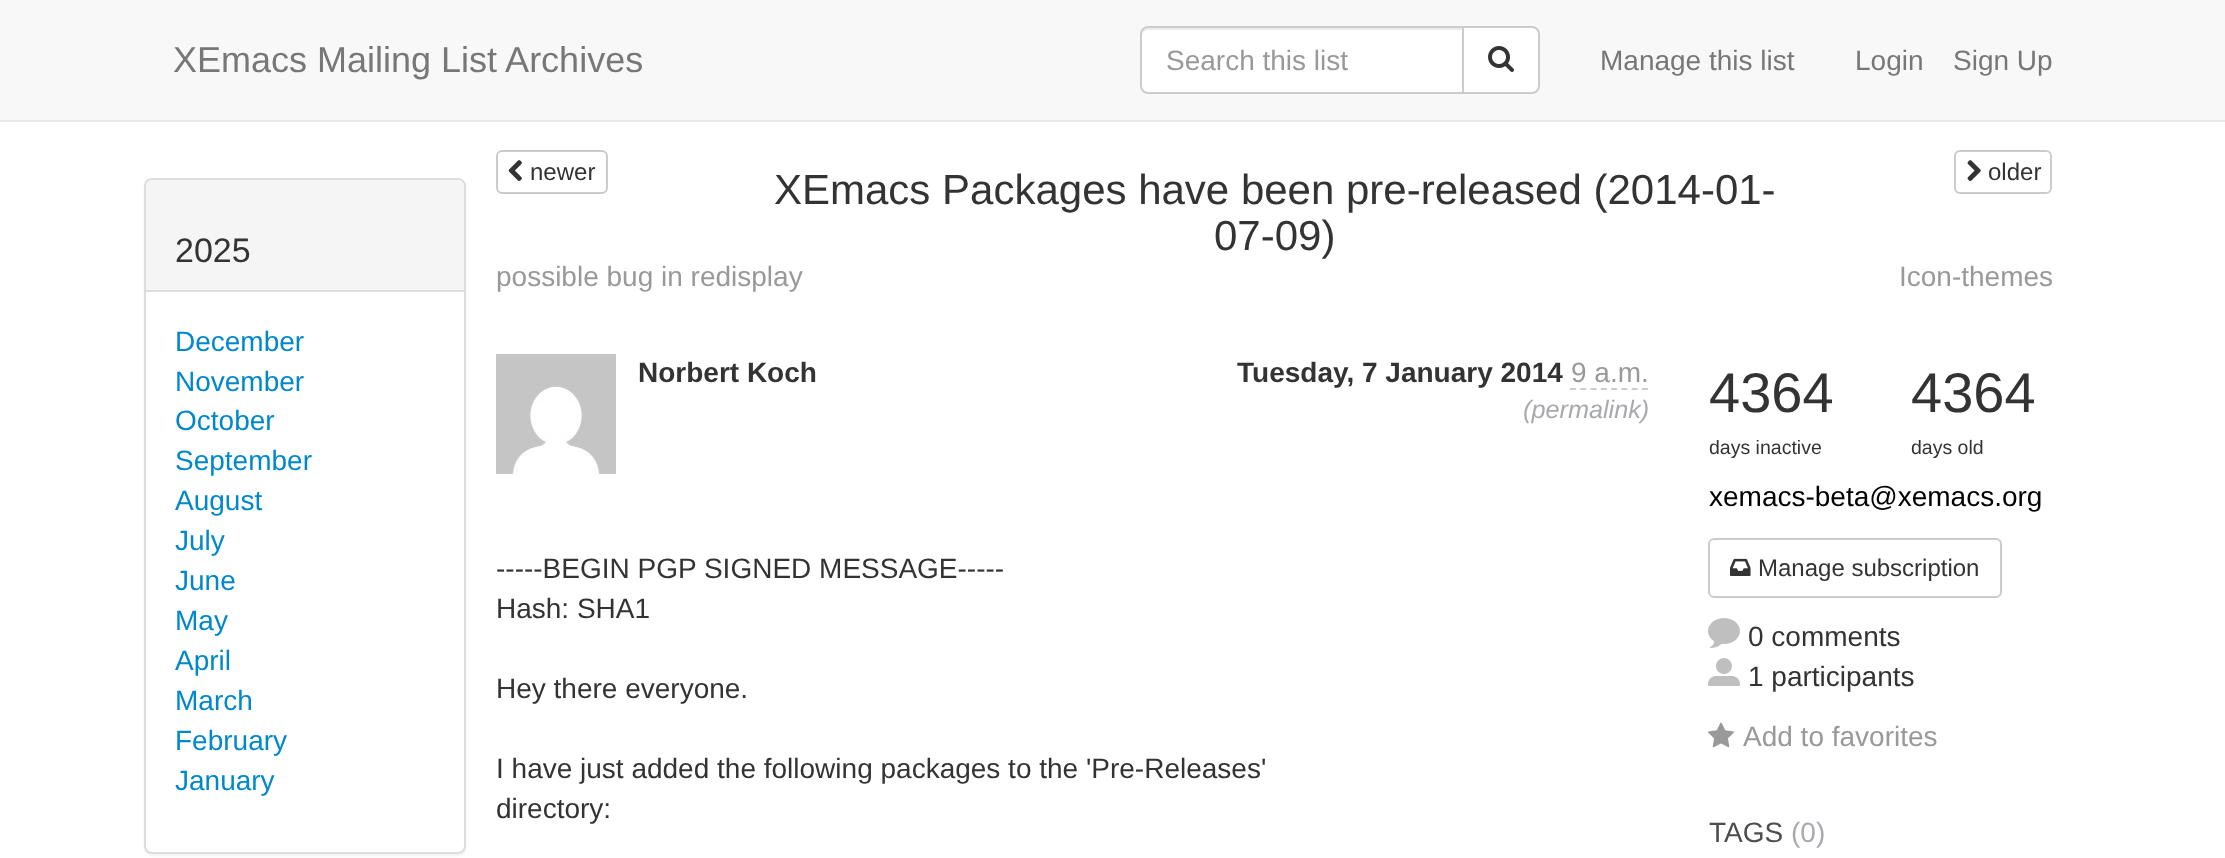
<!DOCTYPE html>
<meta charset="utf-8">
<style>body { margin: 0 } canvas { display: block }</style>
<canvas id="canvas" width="2225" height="858"></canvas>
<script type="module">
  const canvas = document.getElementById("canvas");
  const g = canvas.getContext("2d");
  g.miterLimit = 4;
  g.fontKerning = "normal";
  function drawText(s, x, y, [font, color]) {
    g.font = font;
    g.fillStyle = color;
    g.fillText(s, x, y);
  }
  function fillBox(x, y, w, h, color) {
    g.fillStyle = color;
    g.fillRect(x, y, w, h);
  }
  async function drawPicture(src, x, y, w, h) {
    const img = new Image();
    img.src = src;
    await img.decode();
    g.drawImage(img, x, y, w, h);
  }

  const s1 = ["36px Liberation Sans", "#777777"];
  const s2 = ["28px Liberation Sans", "#999999"];
  const s3 = ["28px Liberation Sans", "#777777"];
  const s4 = ["34px Liberation Sans", "#333333"];
  const s5 = ["28px Liberation Sans", "#0088CC"];
  const s6 = ["24px Liberation Sans", "#333333"];
  const s7 = ["42px Liberation Sans", "#333333"];
  const s8 = ["bold 28px Liberation Sans", "#333333"];
  const s9 = ["italic 25.25px Liberation Sans", "#A7A9AC"];
  const s10 = ["28px Liberation Sans", "#333333"];
  const s11 = ["56px Liberation Sans", "#333333"];
  const s12 = ["19.5px Liberation Sans", "#333333"];
  const s13 = ["28px Liberation Sans", "#000000"];
  const s14 = ["28px Liberation Sans", "#4D4D4D"];
  const s15 = ["28px Liberation Sans", "#A7A9AC"];

  fillBox(0, 0, 2225, 858, "#FFFFFF");
  fillBox(0, 0, 2225, 120, "#F8F8F8");
  fillBox(0, 120, 2225, 2, "#E7E7E7");
  drawText("XEmacs Mailing List Archives", 173, 72, s1);
  g.fillStyle = "#FFFFFF";
  g.beginPath();
  g.roundRect(1140, 26, 324, 68, [8, 0, 0, 8]);
  g.fill();
  g.fillStyle = "#ECECEC";
  g.beginPath();
  g.moveTo(1148, 30);
  g.lineTo(1462, 30);
  g.lineTo(1462, 28);
  g.lineTo(1147, 28);
  g.bezierCurveTo(1143, 29, 1142, 33, 1142, 36);
  g.bezierCurveTo(1142, 33, 1145, 30, 1148, 30);
  g.closePath();
  g.fill();
  g.beginPath();
  g.roundRect(1141, 27, 322, 66, [7, 0, 0, 7]);
  g.strokeStyle = "#CCCCCC";
  g.lineWidth = 2;
  g.stroke();
  drawText("Search this list", 1166, 70, s2);
  g.fillStyle = "#FFFFFF";
  g.beginPath();
  g.roundRect(1463, 27, 76, 66, [0, 7, 7, 0]);
  g.fill();
  g.stroke();
  await drawPicture("pic1.png", 1488, 46, 26, 26);
  drawText("Manage this list", 1600, 70, s3);
  drawText("Login", 1855, 70, s3);
  drawText("Sign Up", 1953, 70, s3);
  g.fillStyle = "rgba(0, 0, 0, 0.05)";
  g.filter = "blur(1px)";
  g.beginPath();
  g.roundRect(144, 180, 322, 676, 8);
  g.fill();
  g.filter = "none";
  g.fillStyle = "#FFFFFF";
  g.beginPath();
  g.roundRect(145, 179, 320, 674, 7);
  g.fill();
  g.strokeStyle = "#DDDDDD";
  g.stroke();
  g.fillStyle = "#F5F5F5";
  g.beginPath();
  g.roundRect(146, 180, 318, 110, [6, 6, 0, 0]);
  g.fill();
  drawText("2025", 175, 262, s4);
  fillBox(146, 290, 318, 2, "#DDDDDD");
  drawText("December", 175, 351, s5);
  drawText("November", 175, 391, s5);
  drawText("October", 175, 430, s5);
  drawText("September", 175, 470, s5);
  drawText("August", 175, 510, s5);
  drawText("July", 175, 550, s5);
  drawText("June", 175, 590, s5);
  drawText("May", 175, 630, s5);
  drawText("April", 175, 670, s5);
  drawText("March", 175, 710, s5);
  drawText("February", 175, 750, s5);
  drawText("January", 175, 790, s5);
  g.beginPath();
  g.roundRect(497, 151, 110, 42, 5);
  g.strokeStyle = "#CCCCCC";
  g.stroke();
  await drawPicture("pic2.png", 508, 160, 14, 21);
  drawText("newer", 530, 180, s6);
  drawText("XEmacs Packages have been pre-released (2014-01-", 774, 204, s7);
  drawText("07-09)", 1214, 250, s7);
  g.beginPath();
  g.roundRect(1955, 151, 96, 42, 5);
  g.stroke();
  await drawPicture("pic3.png", 1967, 160, 14, 21);
  drawText("older", 1988, 180, s6);
  drawText("possible bug in redisplay", 496, 286, s2);
  drawText("Icon-themes", 1899, 286, s2);
  await drawPicture("pic4.png", 496, 354, 120, 120);
  drawText("Norbert Koch", 638, 382, s8);
  drawText("Tuesday, 7 January 2014", 1237, 382, s8);
  drawText("9 a.m.", 1571, 382, s2);
  g.beginPath();
  g.moveTo(1570, 389);
  g.lineTo(1648, 389);
  g.setLineDash([6, 4.28]);
  g.stroke();
  drawText("(permalink)", 1523, 418, s9);
  drawText("-----BEGIN PGP SIGNED MESSAGE-----", 496, 578, s10);
  drawText("Hash: SHA1", 496, 618, s10);
  drawText("Hey there everyone.", 496, 698, s10);
  drawText("I have just added the following packages to the 'Pre-Releases'", 496, 778, s10);
  drawText("directory:", 496, 818, s10);
  drawText("4364", 1709, 412, s11);
  drawText("days inactive", 1709, 454, s12);
  drawText("4364", 1911, 412, s11);
  drawText("days old", 1911, 454, s12);
  drawText("xemacs-beta@xemacs.org", 1709, 506, s13);
  g.beginPath();
  g.roundRect(1709, 539, 292, 58, 5);
  g.setLineDash([]);
  g.stroke();
  await drawPicture("pic5.png", 1730, 558, 21, 18);
  drawText("Manage subscription", 1758, 576, s6);
  await drawPicture("pic6.png", 1708, 618, 32, 30);
  drawText("0 comments", 1748, 646, s10);
  await drawPicture("pic7.png", 1708, 658, 32, 28);
  drawText("1 participants", 1748, 686, s10);
  await drawPicture("pic8.png", 1708, 722, 26, 26);
  drawText("Add to favorites", 1743, 746, s2);
  drawText("TAGS", 1709, 842, s14);
  drawText("(0)", 1791, 842, s15);
</script>
